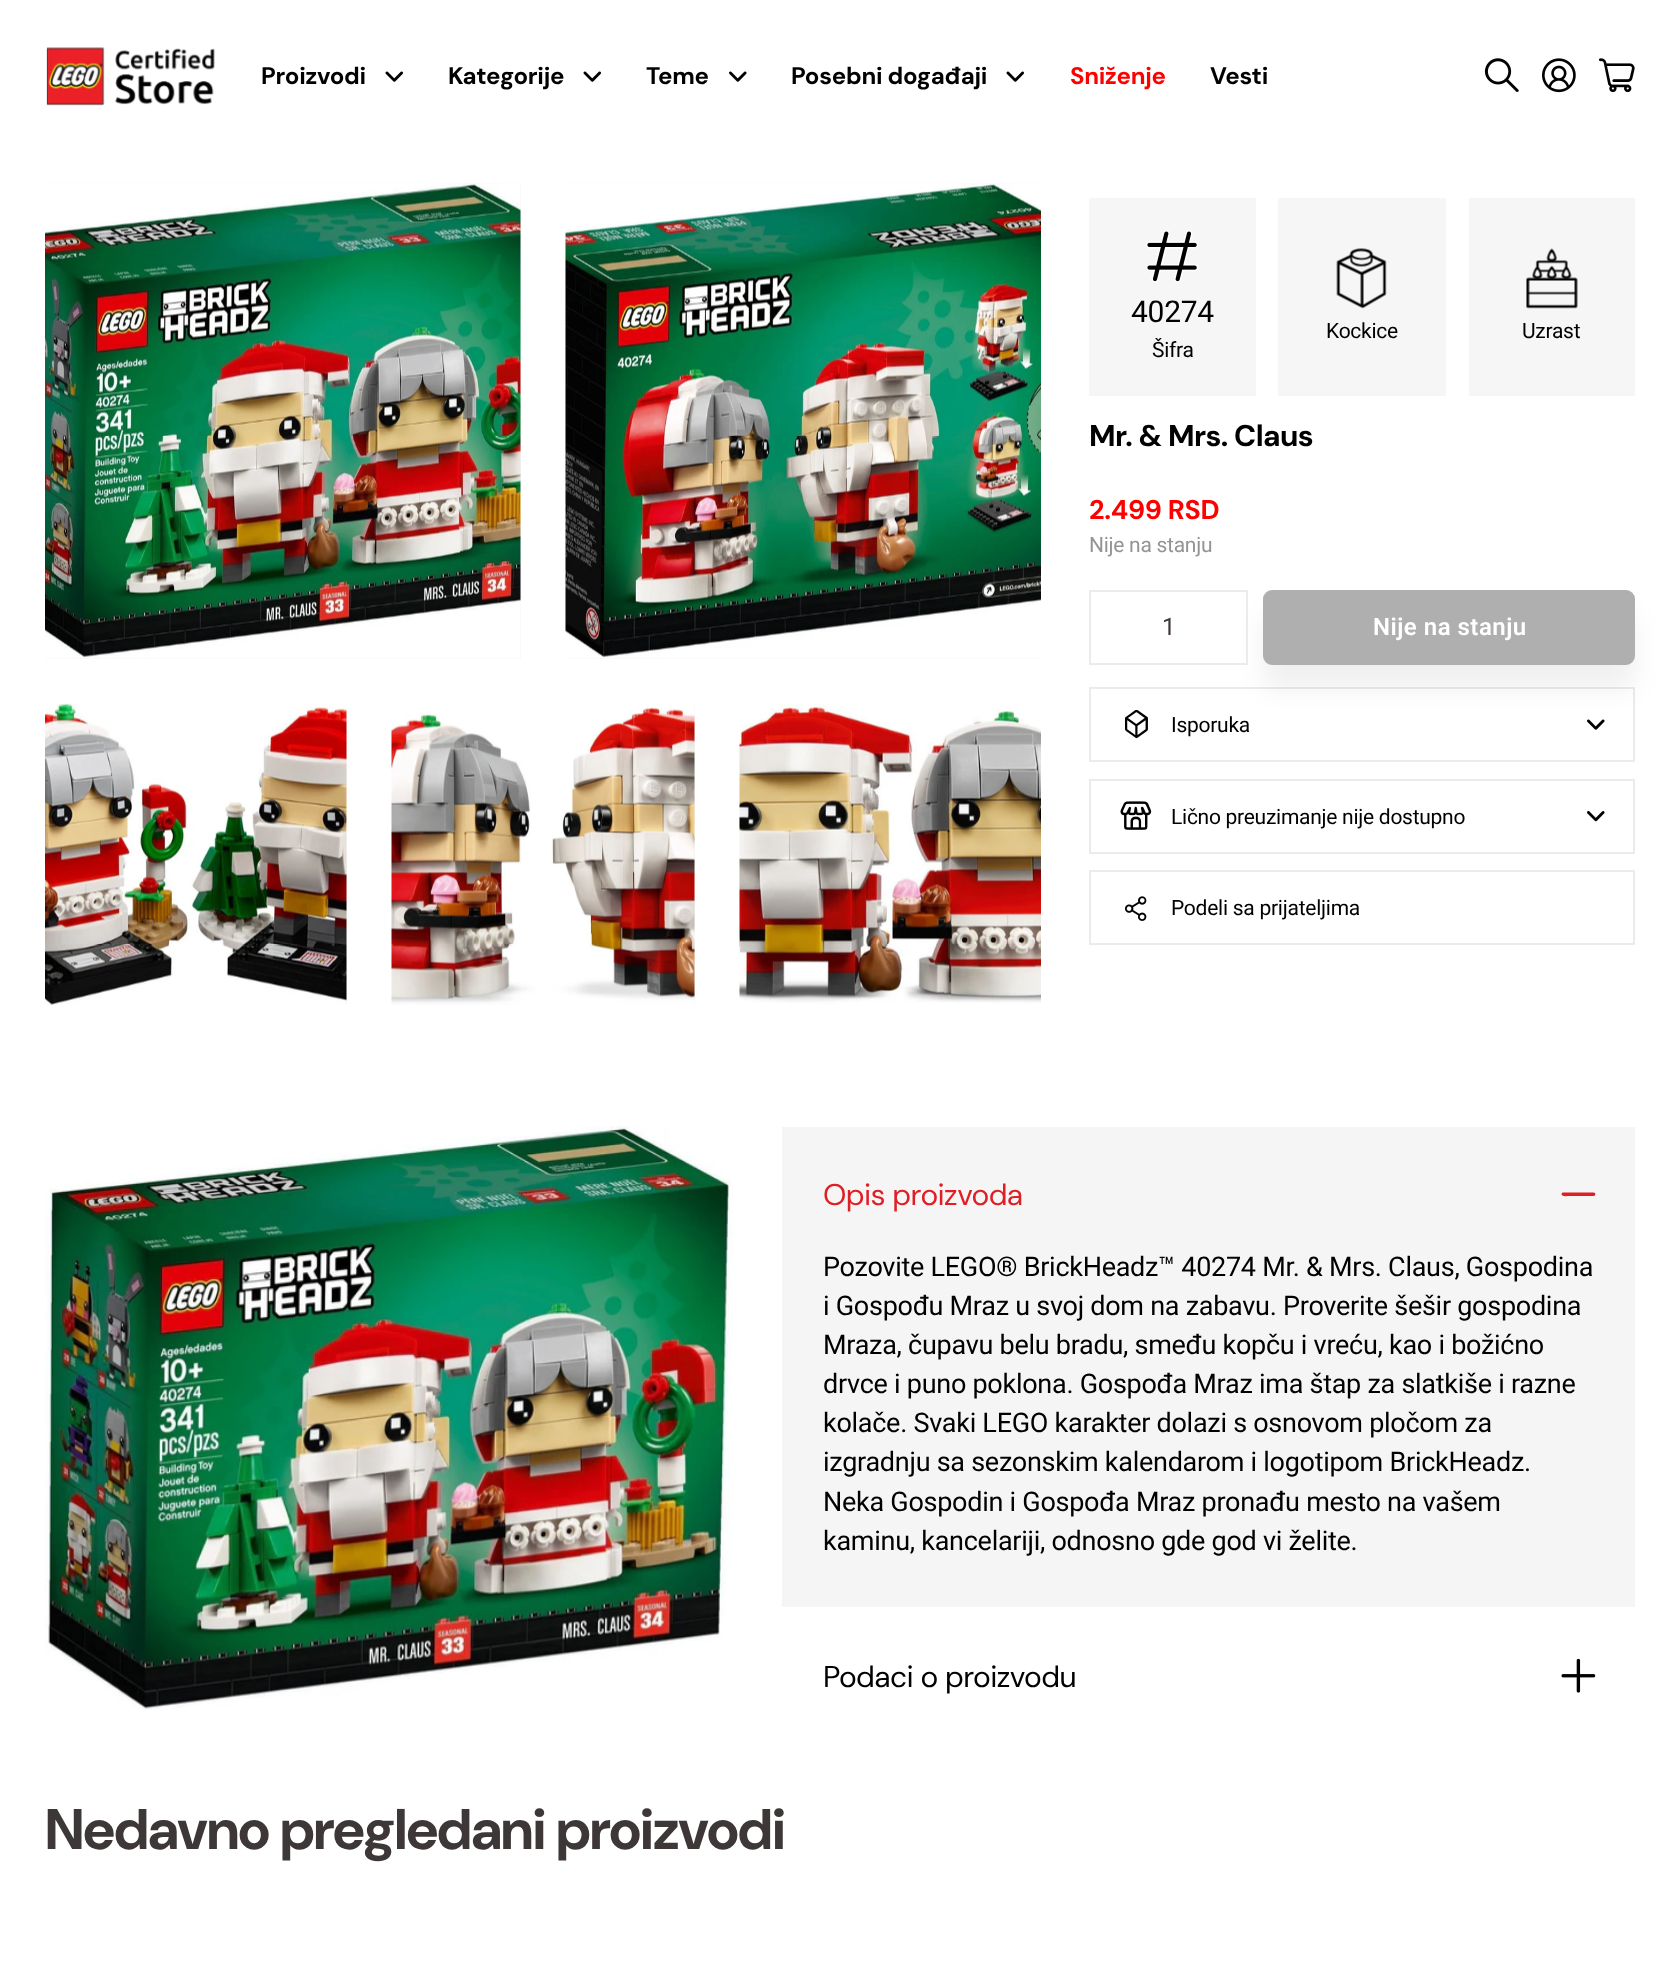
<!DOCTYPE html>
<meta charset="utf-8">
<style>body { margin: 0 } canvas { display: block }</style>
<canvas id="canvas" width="1679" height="1962"></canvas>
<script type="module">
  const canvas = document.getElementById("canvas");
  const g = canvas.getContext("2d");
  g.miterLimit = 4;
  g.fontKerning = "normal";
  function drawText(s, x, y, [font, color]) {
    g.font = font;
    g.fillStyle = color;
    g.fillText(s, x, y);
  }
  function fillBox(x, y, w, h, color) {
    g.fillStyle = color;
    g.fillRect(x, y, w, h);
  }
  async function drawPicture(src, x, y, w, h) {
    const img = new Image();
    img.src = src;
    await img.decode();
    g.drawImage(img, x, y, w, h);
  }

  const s1 = ["bold 24px 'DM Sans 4'", "#020101"];
  const s2 = ["bold 24px 'DM Sans 4'", "#FF0000"];
  const s3 = ["30px Roboto", "#020101"];
  const s4 = ["21px Roboto", "#020101"];
  const s5 = ["bold 30px 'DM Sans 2'", "#020101"];
  const s6 = ["bold 27px DM Sans", "#FF0000"];
  const s7 = ["21px Roboto", "#949494"];
  const s8 = ["24px Roboto", "#3E3737"];
  const s9 = ["600 24px Roboto", "#FFFFFF"];
  const s10 = ["30px DM Sans", "#DF1F26"];
  const s11 = ["27px Roboto", "#020101"];
  const s12 = ["30px DM Sans", "#020101"];
  const s13 = ["bold 57px 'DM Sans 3'", "#3E3737"];

  fillBox(0, 0, 1679, 1962, "#FFFFFF");
  await drawPicture("pic1.png", 46, 47, 169, 59);
  g.letterSpacing = "-0.25px";
  drawText("Proizvodi", 261, 84, s1);
  await drawPicture("pic2.png", 385, 71, 18, 11);
  drawText("Kategorije", 448, 84, s1);
  await drawPicture("pic2.png", 583, 71, 18, 11);
  drawText("Teme", 646, 84, s1);
  await drawPicture("pic3.png", 729, 71, 18, 11);
  drawText("Posebni događaji", 791, 84, s1);
  await drawPicture("pic2.png", 1006, 71, 18, 11);
  drawText("Sniženje", 1070, 84, s2);
  drawText("Vesti", 1210, 84, s1);
  await drawPicture("pic4.png", 1484, 58, 35, 34);
  await drawPicture("pic5.png", 1542, 58, 34, 35);
  await drawPicture("pic6.png", 1599, 58, 36, 35);
  fillBox(45, 183, 476, 476, "#F5F5F5");
  await drawPicture("pic7.png", 45, 182, 476, 477);
  fillBox(566, 183, 475, 476, "#F5F5F5");
  await drawPicture("pic8.png", 565, 183, 476, 476);
  fillBox(45, 704, 302, 301, "#F5F5F5");
  await drawPicture("pic9.png", 45, 703, 302, 302);
  fillBox(392, 704, 303, 301, "#F5F5F5");
  await drawPicture("pic10.png", 391, 704, 304, 301);
  await drawPicture("pic11.png", 739, 704, 302, 301);
  fillBox(1089, 198, 167, 198, "#F6F6F6");
  await drawPicture("pic12.png", 1146, 230, 52, 53);
  g.letterSpacing = "-0.27px";
  drawText("40274", 1131, 322, s3);
  drawText("Šifra", 1152, 357, s4);
  fillBox(1278, 198, 168, 198, "#F6F6F6");
  await drawPicture("pic13.png", 1336, 248, 51, 61);
  drawText("Kockice", 1326, 338, s4);
  fillBox(1469, 198, 166, 198, "#F6F6F6");
  await drawPicture("pic14.png", 1526, 248, 52, 61);
  drawText("Uzrast", 1522, 338, s4);
  g.letterSpacing = "-0.6px";
  drawText("Mr. & Mrs. Claus", 1089, 446, s5);
  g.letterSpacing = "-0.27px";
  drawText("2.499 RSD", 1089, 519, s6);
  drawText("Nije na stanju", 1089, 552, s7);
  g.strokeStyle = "#EBEBEB";
  g.lineWidth = 2;
  g.strokeRect(1090, 688, 544, 73);
  await drawPicture("pic3.png", 1587, 719, 18, 11);
  g.fillStyle = "rgba(0, 0, 0, 0.06)";
  g.filter = "blur(12px)";
  g.beginPath();
  g.roundRect(1263, 614, 372, 75, 9);
  g.fill();
  g.filter = "none";
  g.strokeRect(1090, 591, 157, 73);
  g.letterSpacing = "-0.25px";
  drawText("1", 1162, 635, s8);
  g.fillStyle = "#AFAFAF";
  g.beginPath();
  g.roundRect(1264.5, 591.5, 369, 72, 7.5);
  g.fill();
  g.strokeStyle = "#AFAFAF";
  g.lineWidth = 3;
  g.stroke();
  g.letterSpacing = "0.5px";
  drawText("Nije na stanju", 1373, 635, s9);
  await drawPicture("pic15.png", 1125, 709, 23, 30);
  g.letterSpacing = "-0.27px";
  drawText("Isporuka", 1171, 732, s4);
  g.strokeStyle = "#EBEBEB";
  g.lineWidth = 2;
  g.strokeRect(1090, 780, 544, 73);
  await drawPicture("pic16.png", 1120, 801, 32, 29);
  drawText("Lično preuzimanje nije dostupno", 1171, 824, s4);
  await drawPicture("pic17.png", 1587, 811, 18, 11);
  g.strokeRect(1090, 871, 544, 73);
  await drawPicture("pic18.png", 1125, 896, 22, 25);
  g.letterSpacing = "-0.25px";
  drawText("Podeli sa prijateljima", 1171, 915, s4);
  await drawPicture("pic19.png", 45, 1126, 688, 584);
  fillBox(782, 1127, 853, 480, "#F5F5F5");
  g.letterSpacing = "-0.6px";
  drawText("Opis proizvoda", 823, 1205, s10);
  g.beginPath();
  g.moveTo(1593.5, 1196);
  g.lineTo(1568, 1196);
  g.bezierCurveTo(1567.5, 1196, 1561.5, 1197, 1561.5, 1194);
  g.bezierCurveTo(1561.5, 1193.5, 1562, 1193, 1562.5, 1192.5);
  g.lineTo(1593.5, 1192.5);
  g.bezierCurveTo(1596, 1192.5, 1596, 1196, 1593.5, 1196);
  g.closePath();
  g.fill();
  g.letterSpacing = "-0.27px";
  drawText("Pozovite LEGO® BrickHeadz™ 40274 Mr. & Mrs. Claus, Gospodina", 823, 1276, s11);
  drawText("i Gospođu Mraz u svoj dom na zabavu. Proverite šešir gospodina", 823, 1315, s11);
  drawText("Mraza, čupavu belu bradu, smeđu kopču i vreću, kao i božićno", 823, 1354, s11);
  drawText("drvce i puno poklona. Gospođa Mraz ima štap za slatkiše i razne", 823, 1393, s11);
  drawText("kolače. Svaki LEGO karakter dolazi s osnovom pločom za", 823, 1432, s11);
  drawText("izgradnju sa sezonskim kalendarom i logotipom BrickHeadz.", 823, 1471, s11);
  drawText("Neka Gospodin i Gospođa Mraz pronađu mesto na vašem", 823, 1511, s11);
  drawText("kaminu, kancelariji, odnosno gde god vi želite.", 823, 1550, s11);
  g.letterSpacing = "-0.6px";
  drawText("Podaci o proizvodu", 823, 1687, s12);
  await drawPicture("pic20.png", 1561, 1658, 35, 35);
  g.letterSpacing = "-1.15px";
  drawText("Nedavno pregledani proizvodi", 45, 1849, s13);
</script>
